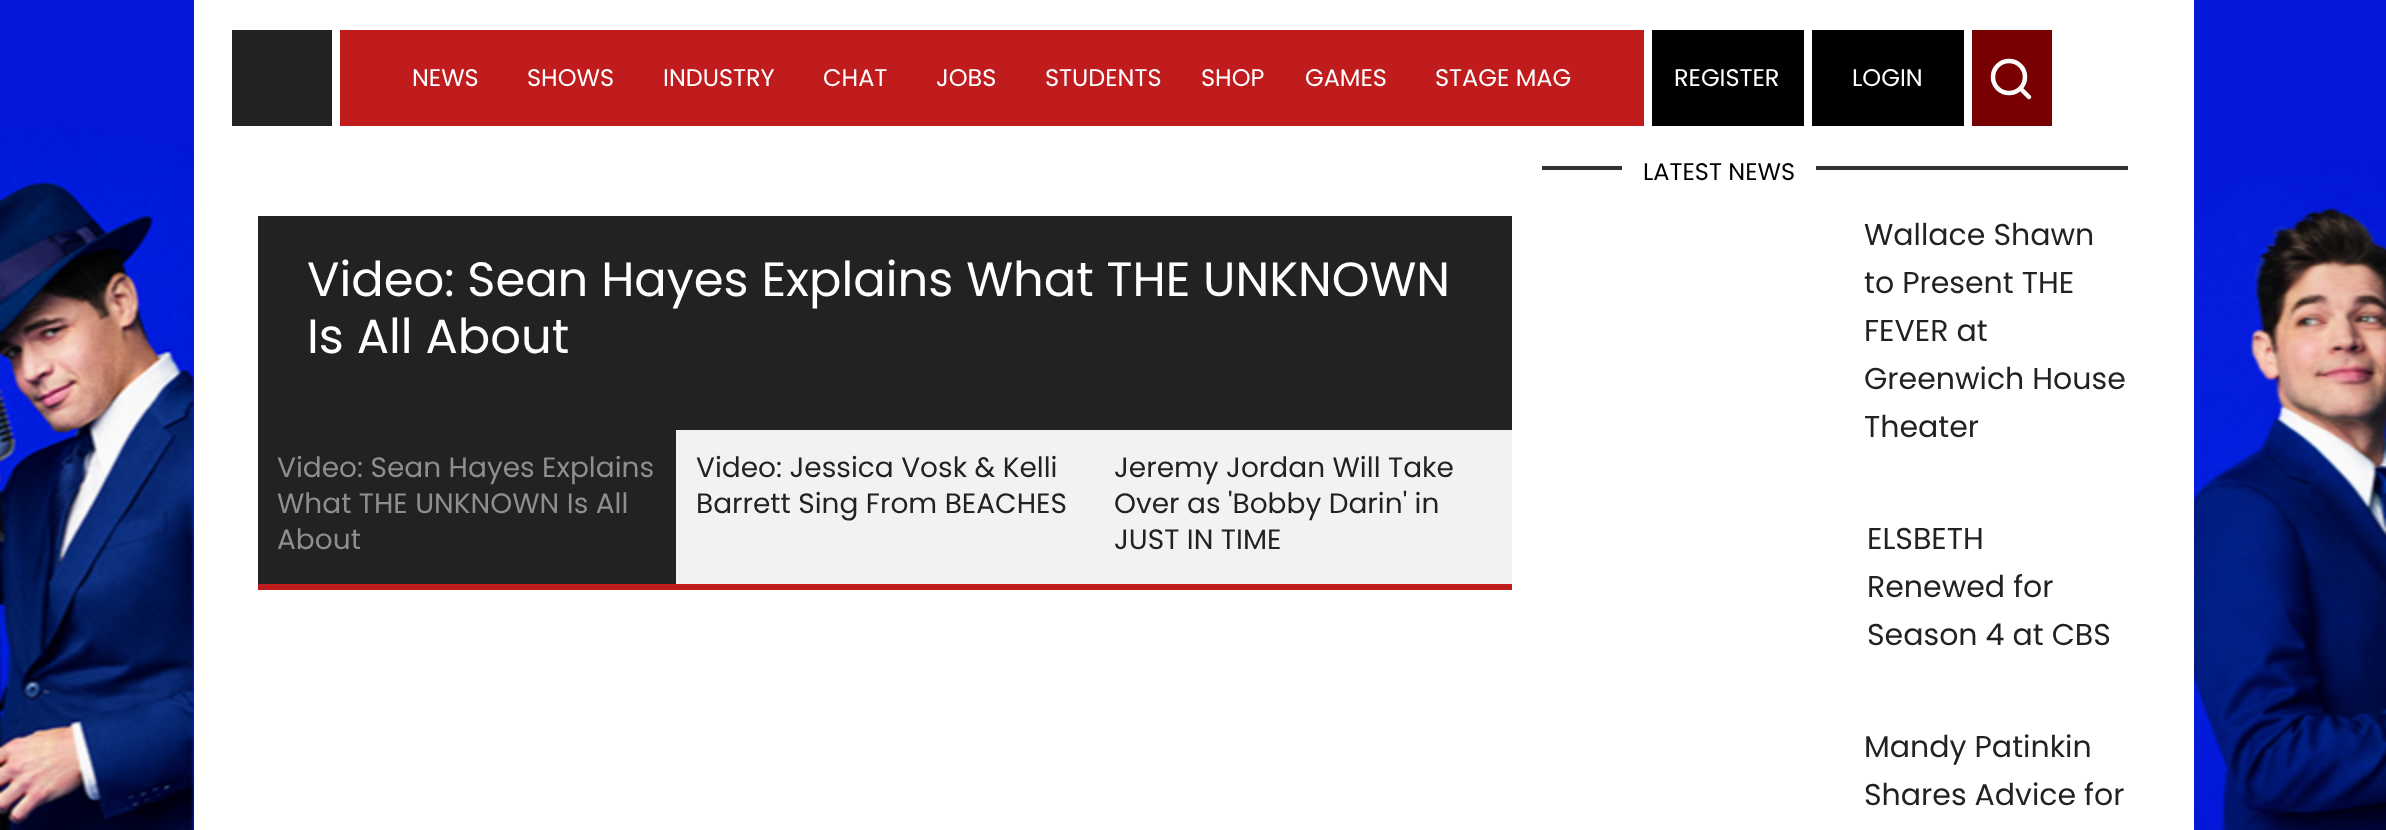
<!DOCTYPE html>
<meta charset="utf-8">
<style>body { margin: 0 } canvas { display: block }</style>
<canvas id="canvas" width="2386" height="830"></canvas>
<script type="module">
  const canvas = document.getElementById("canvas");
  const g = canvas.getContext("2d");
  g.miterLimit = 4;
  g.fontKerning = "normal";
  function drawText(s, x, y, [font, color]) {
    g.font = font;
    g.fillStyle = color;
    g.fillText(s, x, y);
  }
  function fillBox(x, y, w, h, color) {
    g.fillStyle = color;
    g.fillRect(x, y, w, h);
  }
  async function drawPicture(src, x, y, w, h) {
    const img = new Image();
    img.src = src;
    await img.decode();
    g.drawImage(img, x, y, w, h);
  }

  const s1 = ["24px Poppins", "#FFFFFF"];
  const s2 = ["48px Poppins", "#FFFFFF"];
  const s3 = ["28px Poppins", "#8E8E8E"];
  const s4 = ["28px Poppins", "#222222"];
  const s5 = ["24px Poppins", "#000000"];
  const s6 = ["30px Poppins", "#222222"];

  fillBox(0, 0, 2386, 830, "#FFFFFF");
  await drawPicture("pic1.png", 0, 0, 2386, 830);
  fillBox(194, 0, 2000, 830, "#FFFFFF");
  fillBox(232, 30, 100, 96, "#222222");
  fillBox(340, 30, 1304, 96, "#C01B1D");
  drawText("NEWS", 412, 86, s1);
  drawText("SHOWS", 527, 86, s1);
  drawText("INDUSTRY", 663, 86, s1);
  drawText("CHAT", 823, 86, s1);
  drawText("JOBS", 936, 86, s1);
  drawText("STUDENTS", 1045, 86, s1);
  drawText("SHOP", 1201, 86, s1);
  drawText("GAMES", 1305, 86, s1);
  drawText("STAGE MAG", 1435, 86, s1);
  fillBox(1652, 30, 152, 96, "#000000");
  drawText("REGISTER", 1674, 86, s1);
  fillBox(1812, 30, 152, 96, "#000000");
  drawText("LOGIN", 1852, 86, s1);
  fillBox(1972, 30, 80, 96, "#780000");
  g.beginPath();
  g.arc(2009, 77, 16, 0, Math.PI * 2);
  g.strokeStyle = "#FFFFFF";
  g.lineWidth = 4.5;
  g.stroke();
  g.beginPath();
  g.moveTo(2029, 97);
  g.lineTo(2022, 90);
  g.lineCap = "round";
  g.stroke();
  fillBox(258, 216, 1254, 214, "#222222");
  drawText("Video: Sean Hayes Explains What THE UNKNOWN", 307, 296, s2);
  drawText("Is All About", 307, 353, s2);
  fillBox(258, 430, 418, 154, "#222222");
  fillBox(258, 584, 1254, 6, "#C01B1D");
  drawText("Video: Sean Hayes Explains", 277, 477, s3);
  drawText("What THE UNKNOWN Is All", 277, 513, s3);
  drawText("About", 277, 549, s3);
  fillBox(676, 430, 836, 154, "#F2F2F2");
  drawText("Video: Jessica Vosk & Kelli", 696, 477, s4);
  drawText("Barrett Sing From BEACHES", 696, 513, s4);
  drawText("Jeremy Jordan Will Take", 1114, 477, s4);
  drawText("Over as 'Bobby Darin' in", 1114, 513, s4);
  drawText("JUST IN TIME", 1114, 549, s4);
  fillBox(1542, 166, 586, 4, "#333333");
  fillBox(1622, 166, 194, 4, "#FFFFFF");
  drawText("LATEST NEWS", 1643, 180, s5);
  drawText("Wallace Shawn", 1864, 245, s6);
  drawText("to Present THE", 1864, 293, s6);
  drawText("FEVER at", 1864, 341, s6);
  drawText("Greenwich House", 1864, 389, s6);
  drawText("Theater", 1864, 437, s6);
  drawText("ELSBETH", 1867, 549, s6);
  drawText("Renewed for", 1867, 597, s6);
  drawText("Season 4 at CBS", 1867, 645, s6);
  drawText("Mandy Patinkin", 1864, 757, s6);
  drawText("Shares Advice for", 1864, 805, s6);
</script>
